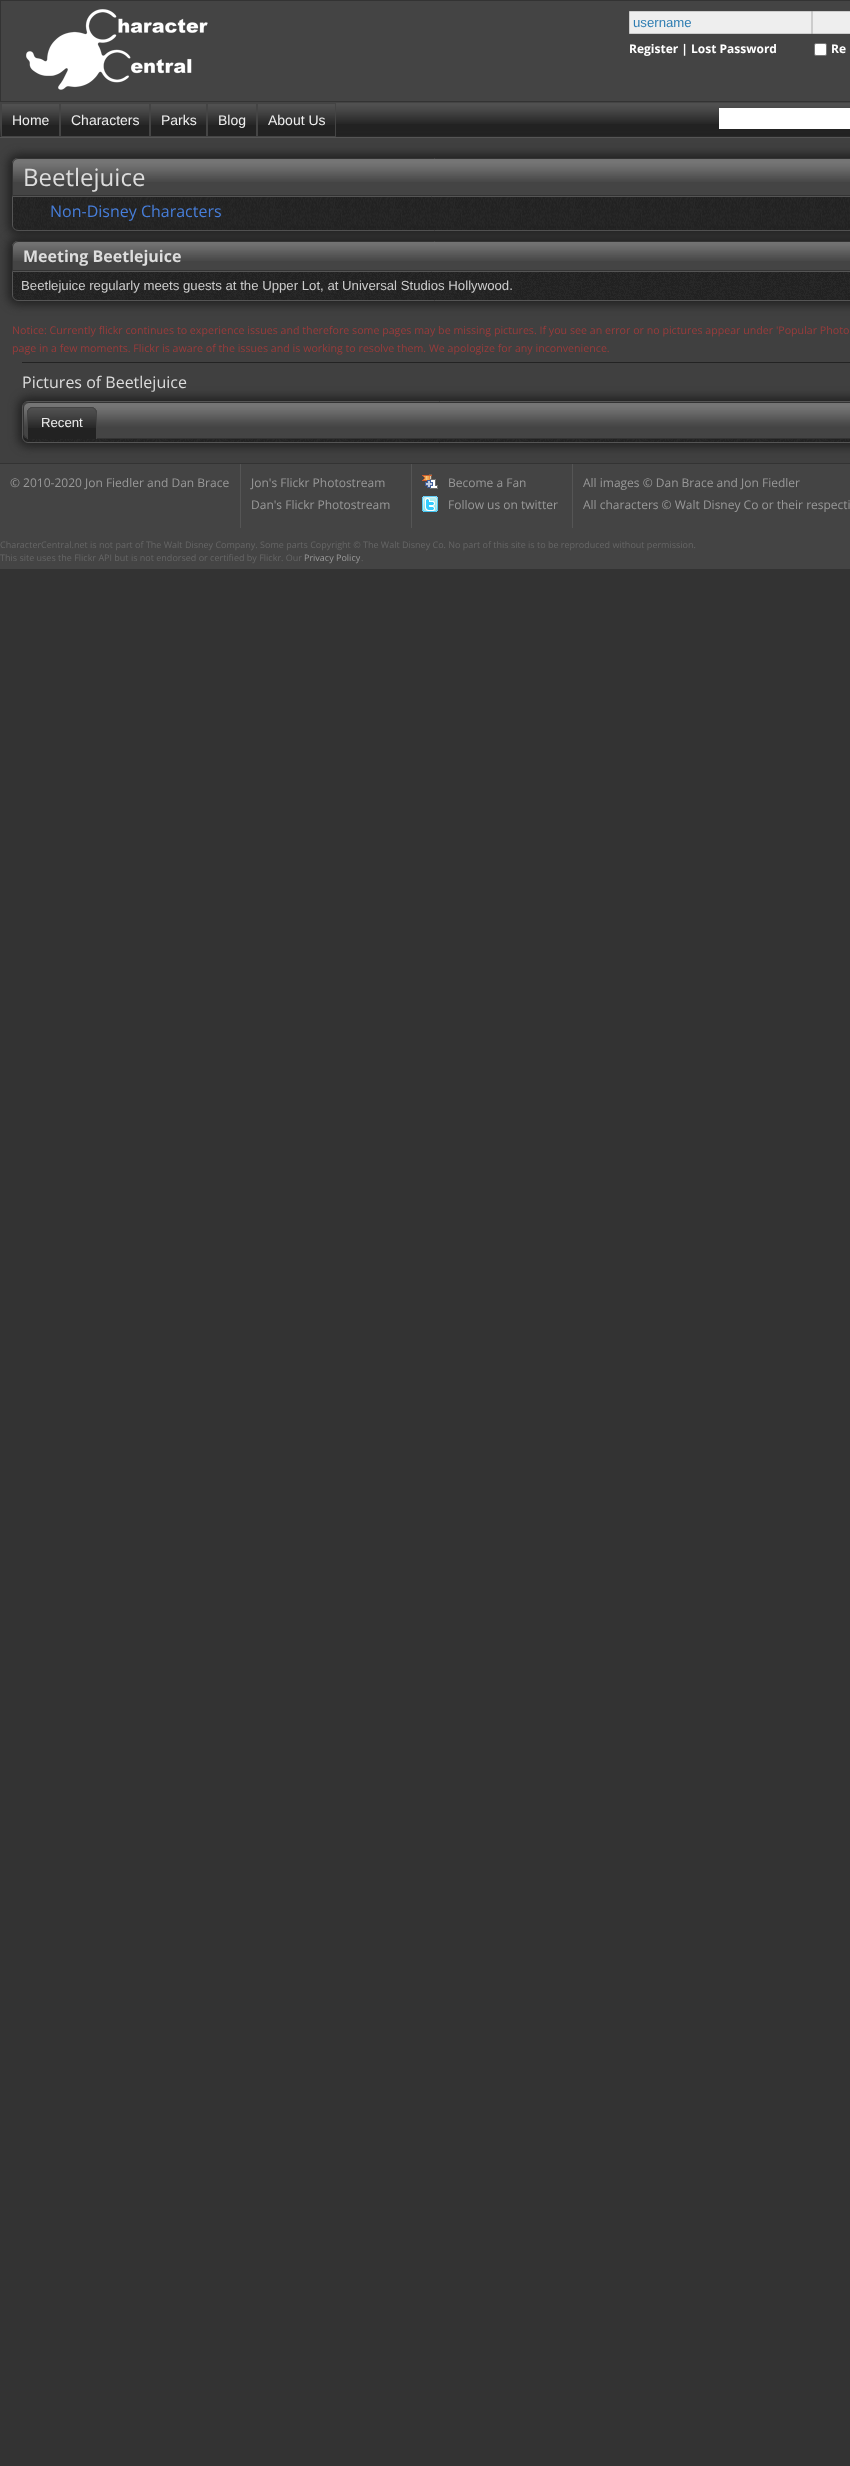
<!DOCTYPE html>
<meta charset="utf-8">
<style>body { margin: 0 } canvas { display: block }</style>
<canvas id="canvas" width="850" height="2466"></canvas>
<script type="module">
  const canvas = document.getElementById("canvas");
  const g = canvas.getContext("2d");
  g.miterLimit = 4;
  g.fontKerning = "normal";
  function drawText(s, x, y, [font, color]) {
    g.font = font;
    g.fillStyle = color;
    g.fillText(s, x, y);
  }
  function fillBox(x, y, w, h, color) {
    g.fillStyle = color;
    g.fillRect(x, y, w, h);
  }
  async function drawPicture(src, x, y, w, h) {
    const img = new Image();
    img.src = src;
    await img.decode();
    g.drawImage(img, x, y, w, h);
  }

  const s1 = ["13.2px Liberation Sans", "#2E7DB2"];
  const s2 = ["bold 12px Open Sans", "#FFFFFF"];
  const s3 = ["14px Liberation Sans", "#EEEEEE"];
  const s4 = ["24px Open Sans", "#DDDDDD"];
  const s5 = ["16px Open Sans", "#477EDA"];
  const s6 = ["bold 16px Open Sans", "#DDDDDD"];
  const s7 = ["13.2px Liberation Sans", "#CCCCCC"];
  const s8 = ["10.67px Open Sans", "#993B3B"];
  const s9 = ["16px Open Sans", "#DDDDDD"];
  const s10 = ["13.2px Liberation Sans", "#EEEEEE"];
  const s11 = ["12px Open Sans", "#999999"];
  const s12 = ["9px Open Sans", "#666666"];
  const s13 = ["9px Open Sans", "#999999"];

  fillBox(0, 0, 850, 2466, "#333333");
  fillBox(1, 1, 849, 100, "#444444");
  await drawPicture("pic1.png", 26, 9, 182, 81);
  g.fillStyle = "#EEEEEE";
  g.beginPath();
  g.rect(629.5, 11.5, 182, 22);
  g.fill();
  g.strokeStyle = "#CCCCCC";
  g.stroke();
  drawText("username", 633, 27, s1);
  g.fillStyle = "#EEEEEE";
  g.beginPath();
  g.rect(812.5, 11.5, 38, 22);
  g.fill();
  g.stroke();
  drawText("Register | Lost Password", 629, 53, s2);
  g.beginPath();
  g.roundRect(814.5, 43.5, 12, 12, 1.5);
  g.fill();
  g.strokeStyle = "#767676";
  g.stroke();
  drawText("Re", 831, 53, s2);
  fillBox(336, 124, 514, 12, "#222222");
  await drawPicture("pic2.png", 336, 103, 514, 21);
  g.strokeStyle = "#444444";
  g.strokeRect(0.5, 102.5, 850, 34);
  g.filter = "blur(5px)";
  g.beginPath();
  g.rect(-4, 133, 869, 334);
  g.fill();
  g.filter = "none";
  fillBox(2, 125, 57, 11, "#222222");
  await drawPicture("pic3.png", 2, 104, 57, 21);
  g.strokeRect(1.5, 103.5, 58, 33);
  drawText("Home", 12, 125, s3);
  fillBox(61, 125, 88, 11, "#222222");
  await drawPicture("pic4.png", 61, 104, 88, 21);
  g.strokeRect(60.5, 103.5, 89, 33);
  drawText("Characters", 71, 125, s3);
  fillBox(151, 125, 55, 11, "#222222");
  await drawPicture("pic5.png", 151, 104, 55, 21);
  g.strokeRect(150.5, 103.5, 56, 33);
  drawText("Parks", 161, 125, s3);
  fillBox(208, 125, 48, 11, "#222222");
  await drawPicture("pic6.png", 208, 104, 48, 21);
  g.strokeRect(207.5, 103.5, 49, 33);
  drawText("Blog", 218, 125, s3);
  fillBox(258, 125, 77, 11, "#222222");
  await drawPicture("pic7.png", 258, 104, 77, 21);
  g.strokeRect(257.5, 103.5, 78, 33);
  drawText("About Us", 268, 125, s3);
  fillBox(0, 138, 850, 325, "#404040");
  fillBox(0, 137, 850, 1, "#555555");
  g.fillStyle = "#222222";
  g.filter = "blur(5px)";
  g.beginPath();
  g.roundRect(8, 154, 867, 81, 10);
  g.fill();
  g.filter = "none";
  g.fillStyle = "#444444";
  g.beginPath();
  g.moveTo(18, 158);
  g.lineTo(850, 158);
  g.bezierCurveTo(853.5, 158, 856, 160.5, 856, 164);
  g.lineTo(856, 196);
  g.lineTo(12, 196);
  g.lineTo(12, 164);
  g.bezierCurveTo(12, 160.5, 14.5, 158, 18, 158);
  g.closePath();
  g.fill();
  await drawPicture("pic8.png", 12, 158, 838, 24);
  g.beginPath();
  g.moveTo(18, 158.5);
  g.lineTo(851, 158.5);
  g.bezierCurveTo(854, 158.5, 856.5, 161, 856.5, 164);
  g.lineTo(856.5, 195.5);
  g.lineTo(12.5, 195.5);
  g.lineTo(12.5, 164);
  g.bezierCurveTo(12.5, 161, 15, 158.5, 18, 158.5);
  g.closePath();
  g.strokeStyle = "#333333";
  g.stroke();
  drawText("Beetlejuice", 23, 186, s4);
  await drawPicture("pic9.png", 12, 197, 838, 34);
  g.beginPath();
  g.moveTo(12.5, 196.5);
  g.lineTo(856.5, 196.5);
  g.lineTo(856.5, 225);
  g.bezierCurveTo(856.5, 228, 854, 230.5, 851, 230.5);
  g.lineTo(18, 230.5);
  g.bezierCurveTo(15, 230.5, 12.5, 228, 12.5, 225);
  g.closePath();
  g.strokeStyle = "#555555";
  g.stroke();
  drawText("Non-Disney Characters", 50, 217, s5);
  g.fillStyle = "#222222";
  g.filter = "blur(5px)";
  g.beginPath();
  g.roundRect(8, 237, 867, 68, 10);
  g.fill();
  g.filter = "none";
  g.fillStyle = "#444444";
  g.beginPath();
  g.moveTo(18, 241);
  g.lineTo(850, 241);
  g.bezierCurveTo(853.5, 241, 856, 243.5, 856, 247);
  g.lineTo(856, 271);
  g.lineTo(12, 271);
  g.lineTo(12, 247);
  g.bezierCurveTo(12, 243.5, 14.5, 241, 18, 241);
  g.closePath();
  g.fill();
  await drawPicture("pic10.png", 12, 241, 838, 20);
  g.beginPath();
  g.moveTo(18, 241.5);
  g.lineTo(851, 241.5);
  g.bezierCurveTo(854, 241.5, 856.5, 244, 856.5, 247);
  g.lineTo(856.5, 270.5);
  g.lineTo(12.5, 270.5);
  g.lineTo(12.5, 247);
  g.bezierCurveTo(12.5, 244, 15, 241.5, 18, 241.5);
  g.closePath();
  g.strokeStyle = "#333333";
  g.stroke();
  drawText("Meeting Beetlejuice", 23, 262, s6);
  await drawPicture("pic11.png", 12, 272, 838, 29);
  g.beginPath();
  g.moveTo(12.5, 271.5);
  g.lineTo(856.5, 271.5);
  g.lineTo(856.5, 295);
  g.bezierCurveTo(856.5, 298, 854, 300.5, 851, 300.5);
  g.lineTo(18, 300.5);
  g.bezierCurveTo(15, 300.5, 12.5, 298, 12.5, 295);
  g.closePath();
  g.strokeStyle = "#555555";
  g.stroke();
  drawText("Beetlejuice regularly meets guests at the Upper Lot, at Universal Studios Hollywood.", 21, 290, s7);
  drawText("Notice: Currently flickr continues to experience issues and therefore some pages may be missing pictures. If you see an error or no pictures appear under 'Popular Photo", 12, 334, s8);
  drawText("page in a few moments. Flickr is aware of the issues and is working to resolve them.", 12, 352, s8);
  drawText("We apologize for any inconvenience.", 429, 352, s8);
  fillBox(22, 362, 828, 1, "#232323");
  drawText("Pictures of Beetlejuice", 22, 388, s9);
  g.fillStyle = "#222222";
  g.filter = "blur(5px)";
  g.beginPath();
  g.roundRect(18, 397, 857, 50, 10);
  g.fill();
  g.filter = "none";
  await drawPicture("pic12.png", 22, 401, 828, 42);
  g.beginPath();
  g.roundRect(22.5, 401.5, 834, 41, 5.5);
  g.stroke();
  await drawPicture("pic13.png", 23, 402, 827, 37);
  g.beginPath();
  g.roundRect(23.5, 402.5, 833, 36, 5.5);
  g.strokeStyle = "#333333";
  g.stroke();
  g.beginPath();
  g.roundRect(27, 407, 70, 32, [6, 6, 0, 0]);
  g.fill();
  await drawPicture("pic14.png", 27, 407, 70, 21);
  g.fillStyle = "#444444";
  g.beginPath();
  g.moveTo(33, 407);
  g.lineTo(91, 407);
  g.bezierCurveTo(94, 407, 97, 410, 97, 413);
  g.lineTo(97, 439);
  g.lineTo(27, 439);
  g.lineTo(27, 413);
  g.bezierCurveTo(27, 410, 30, 407, 33, 407);
  g.closePath();
  g.moveTo(33, 408);
  g.lineTo(91, 408);
  g.bezierCurveTo(94, 408, 96, 410, 96, 413);
  g.lineTo(96, 439);
  g.lineTo(28, 439);
  g.lineTo(28, 413);
  g.bezierCurveTo(28, 410, 30, 408, 33, 408);
  g.closePath();
  g.fill("evenodd");
  drawText("Recent", 41, 427, s10);
  fillBox(0, 464, 850, 105, "#444444");
  fillBox(0, 463, 850, 1, "#333333");
  drawText("© 2010-2020 Jon Fiedler and Dan Brace", 10, 487, s11);
  fillBox(240, 464, 1, 64, "#555555");
  drawText("Jon's Flickr Photostream", 251, 487, s11);
  drawText("Dan's Flickr Photostream", 251, 509, s11);
  fillBox(411, 464, 1, 64, "#555555");
  await drawPicture("pic15.png", 422, 474, 16, 15);
  drawText("Become a Fan", 448, 487, s11);
  await drawPicture("pic16.png", 422, 496, 16, 16);
  drawText("Follow us on twitter", 448, 509, s11);
  fillBox(572, 464, 1, 64, "#555555");
  drawText("All images © Dan Brace and Jon Fiedler", 583, 487, s11);
  drawText("All characters © Walt Disney Co or their respecti", 583, 509, s11);
  drawText("CharacterCentral.net is not part of The Walt Disney Company. Some parts Copyright © The Walt Disney Co. No part of this site is to be reproduced without permission.", 0, 548, s12);
  drawText("This site uses the Flickr API but is not endorsed or certified by Flickr. Our", 0, 561, s12);
  drawText("Privacy Policy", 304, 561, s13);
  drawText(".", 361, 561, s12);
  fillBox(719, 108, 131, 21, "#FFFFFF");
</script>
